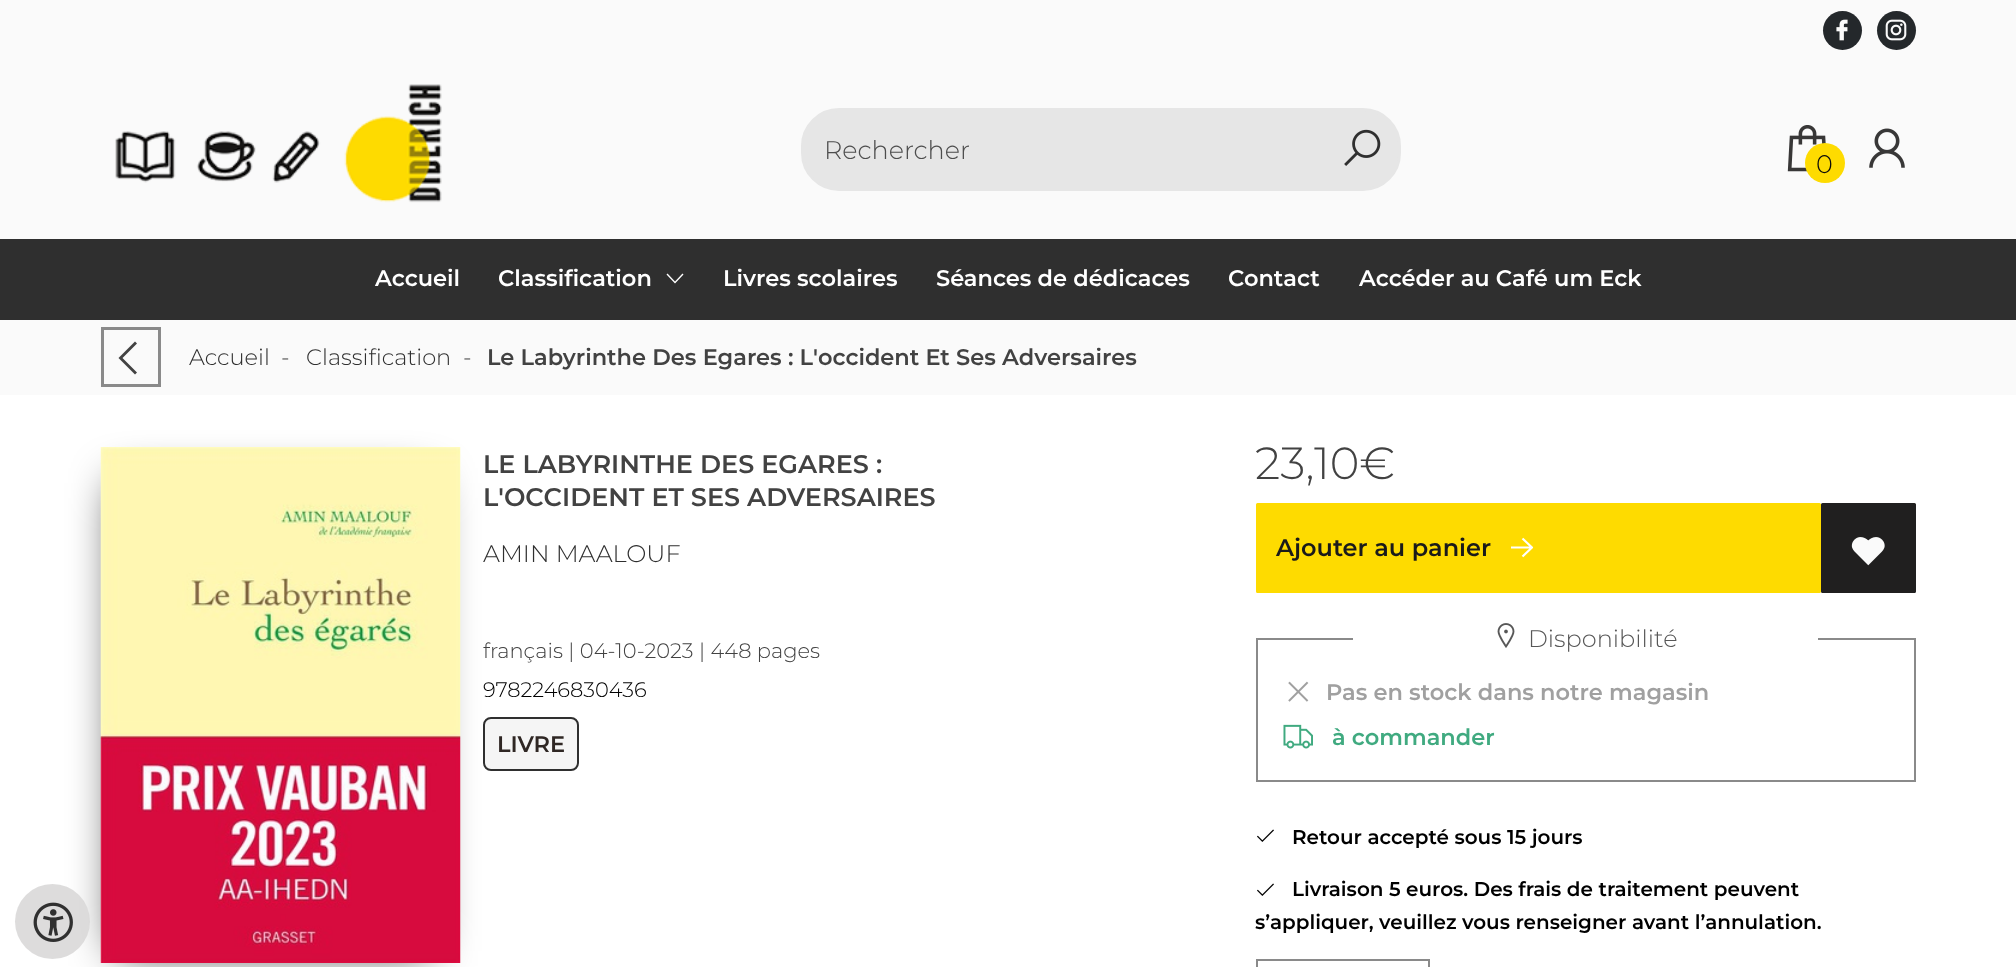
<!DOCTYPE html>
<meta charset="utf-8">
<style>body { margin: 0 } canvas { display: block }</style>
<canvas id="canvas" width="2016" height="967"></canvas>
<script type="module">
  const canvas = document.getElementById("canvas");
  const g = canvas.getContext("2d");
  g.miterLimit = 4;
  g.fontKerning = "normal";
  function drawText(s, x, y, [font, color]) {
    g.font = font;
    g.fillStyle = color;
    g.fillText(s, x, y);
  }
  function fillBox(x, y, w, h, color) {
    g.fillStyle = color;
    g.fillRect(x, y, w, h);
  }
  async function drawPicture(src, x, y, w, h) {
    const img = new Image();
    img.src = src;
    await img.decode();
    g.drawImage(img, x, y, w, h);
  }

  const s1 = ["300 25.5px Montserrat", "#4D4D4D"];
  const s2 = ["300 25.5px Montserrat", "#0B0B0B"];
  const s3 = ["600 22.5px Montserrat", "#FFFFFF"];
  const s4 = ["300 22.5px Montserrat", "#2F2F2F"];
  const s5 = ["300 22.5px Montserrat", "#424242"];
  const s6 = ["600 22.5px Montserrat", "#424242"];
  const s7 = ["600 25.5px Montserrat", "#424242"];
  const s8 = ["300 24px Montserrat", "#2F2F2F"];
  const s9 = ["300 21px Montserrat", "#424242"];
  const s10 = ["300 21px Montserrat", "#000000"];
  const s11 = ["600 22.5px Montserrat", "#2F2724"];
  const s12 = ["300 45px Montserrat", "#424242"];
  const s13 = ["600 24px Montserrat", "#1A1A1A"];
  const s14 = ["300 24px Montserrat", "#575757"];
  const s15 = ["600 22.5px Montserrat", "#A0A0A0"];
  const s16 = ["600 22.5px Montserrat", "#40AA80"];
  const s17 = ["600 19.95px Montserrat", "#000000"];

  fillBox(0, 0, 2016, 967, "#FFFFFF");
  fillBox(0, 0, 2016, 239, "#FAFAFA");
  g.fillStyle = "#24282B";
  g.beginPath();
  g.arc(1842.5, 30.5, 19.5, 0, Math.PI * 2);
  g.fill();
  await drawPicture("pic1.png", 1836, 19, 12, 22);
  g.beginPath();
  g.arc(1896.5, 30.5, 19.5, 0, Math.PI * 2);
  g.fill();
  await drawPicture("pic2.png", 1885, 19, 22, 22);
  await drawPicture("pic3.png", 115, 84, 327, 119);
  g.fillStyle = "#E6E6E6";
  g.beginPath();
  g.roundRect(802.5, 109.5, 597, 80, 36.5);
  g.fill();
  g.strokeStyle = "#E6E6E6";
  g.lineWidth = 3;
  g.stroke();
  drawText("Rechercher", 824, 159, s1);
  await drawPicture("pic4.png", 1344, 129, 37, 37);
  await drawPicture("pic5.png", 1787, 125, 39, 47);
  g.fillStyle = "#FEDB00";
  g.beginPath();
  g.arc(1825, 163, 20, 0, Math.PI * 2);
  g.fill();
  drawText("0", 1816, 173, s2);
  await drawPicture("pic6.png", 1869, 128, 36, 40);
  fillBox(0, 239, 2016, 81, "#2F2F2F");
  drawText("Accueil", 375, 286, s3);
  drawText("Classification", 498, 286, s3);
  g.beginPath();
  g.moveTo(667.5, 273.5);
  g.lineTo(666.5, 274.5);
  g.lineTo(675, 283.5);
  g.lineTo(683.5, 274.5);
  g.lineTo(682.5, 273.5);
  g.lineTo(675, 281.5);
  g.closePath();
  g.fill();
  drawText("Livres scolaires", 723, 286, s3);
  drawText("Séances de dédicaces", 936, 286, s3);
  drawText("Contact", 1228, 286, s3);
  drawText("Accéder au Café um Eck", 1359, 286, s3);
  g.fillStyle = "rgba(0, 0, 0, 0.88)";
  g.filter = "blur(22.5px)";
  g.beginPath();
  g.rect(117, 483, 312, 468);
  g.fill();
  g.filter = "none";
  g.fillStyle = "rgba(217, 216, 216, 0.9)";
  g.beginPath();
  g.arc(52.5, 921.5, 37.5, 0, Math.PI * 2);
  g.fill();
  await drawPicture("pic7.png", 33, 902, 40, 40);
  fillBox(0, 320, 2016, 75, "#FAFAFA");
  g.strokeStyle = "#8A8A8A";
  g.strokeRect(102.5, 328.5, 57, 57);
  g.fillStyle = "#424242";
  g.beginPath();
  g.moveTo(135, 341.5);
  g.lineTo(118.5, 358);
  g.lineTo(135, 374.5);
  g.lineTo(137, 372.5);
  g.lineTo(122.5, 358);
  g.lineTo(137, 343.5);
  g.closePath();
  g.fill();
  drawText("Accueil", 189, 365, s4);
  drawText("-", 281, 365, s5);
  drawText("Classification", 306, 365, s4);
  drawText("-", 463, 365, s5);
  drawText("Le Labyrinthe Des Egares : L'occident Et Ses Adversaires", 487, 365, s6);
  await drawPicture("pic8.png", 100, 447, 361, 516);
  drawText("LE LABYRINTHE DES EGARES :", 483, 473, s7);
  drawText("L'OCCIDENT ET SES ADVERSAIRES", 483, 506, s7);
  drawText("AMIN MAALOUF", 483, 562, s8);
  drawText("français | 04-10-2023 | 448 pages", 483, 658, s9);
  drawText("9782246830436", 483, 697, s10);
  g.fillStyle = "#F5F5F5";
  g.beginPath();
  g.roundRect(484, 718, 94, 52, 7);
  g.fill();
  g.strokeStyle = "#2F2F2F";
  g.lineWidth = 2;
  g.stroke();
  drawText("LIVRE", 497, 752, s11);
  drawText("23,10€", 1255, 479, s12);
  g.fillStyle = "#FEDB00";
  g.beginPath();
  g.roundRect(1257, 504, 563, 88, 0.5);
  g.fill();
  g.strokeStyle = "#FEDB00";
  g.stroke();
  drawText("Ajouter au panier", 1276, 556, s13);
  g.beginPath();
  g.moveTo(1522.5, 538.5);
  g.lineTo(1532, 547.5);
  g.lineTo(1522.5, 556.5);
  g.moveTo(1511, 547.5);
  g.lineTo(1532, 547.5);
  g.strokeStyle = "#FFFFFF";
  g.lineWidth = 2.2;
  g.lineJoin = "round";
  g.stroke();
  g.fillStyle = "#201F1F";
  g.beginPath();
  g.roundRect(1822, 504, 93, 88, 0.5);
  g.fill();
  g.strokeStyle = "#201F1F";
  g.lineWidth = 2;
  g.lineJoin = "miter";
  g.stroke();
  await drawPicture("pic9.png", 1851, 537, 34, 29);
  g.strokeStyle = "#8A8A8A";
  g.strokeRect(1257, 639, 658, 142);
  fillBox(1353, 638, 465, 2, "#FFFFFF");
  await drawPicture("pic10.png", 1497, 623, 18, 25);
  drawText("Disponibilité", 1528, 647, s14);
  await drawPicture("pic11.png", 1288, 681, 21, 21);
  drawText("Pas en stock dans notre magasin", 1326, 700, s15);
  await drawPicture("pic12.png", 1283, 724, 30, 25);
  drawText("à commander", 1332, 745, s16);
  await drawPicture("pic13.png", 1257, 829, 17, 13);
  drawText("Retour accepté sous 15 jours", 1292, 844, s17);
  await drawPicture("pic13.png", 1257, 883, 17, 13);
  drawText("Livraison 5 euros. Des frais de traitement peuvent", 1292, 896, s17);
  drawText("s’appliquer, veuillez vous renseigner avant l’annulation.", 1255, 929, s17);
  g.strokeRect(1257, 960, 172, 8);
</script>
